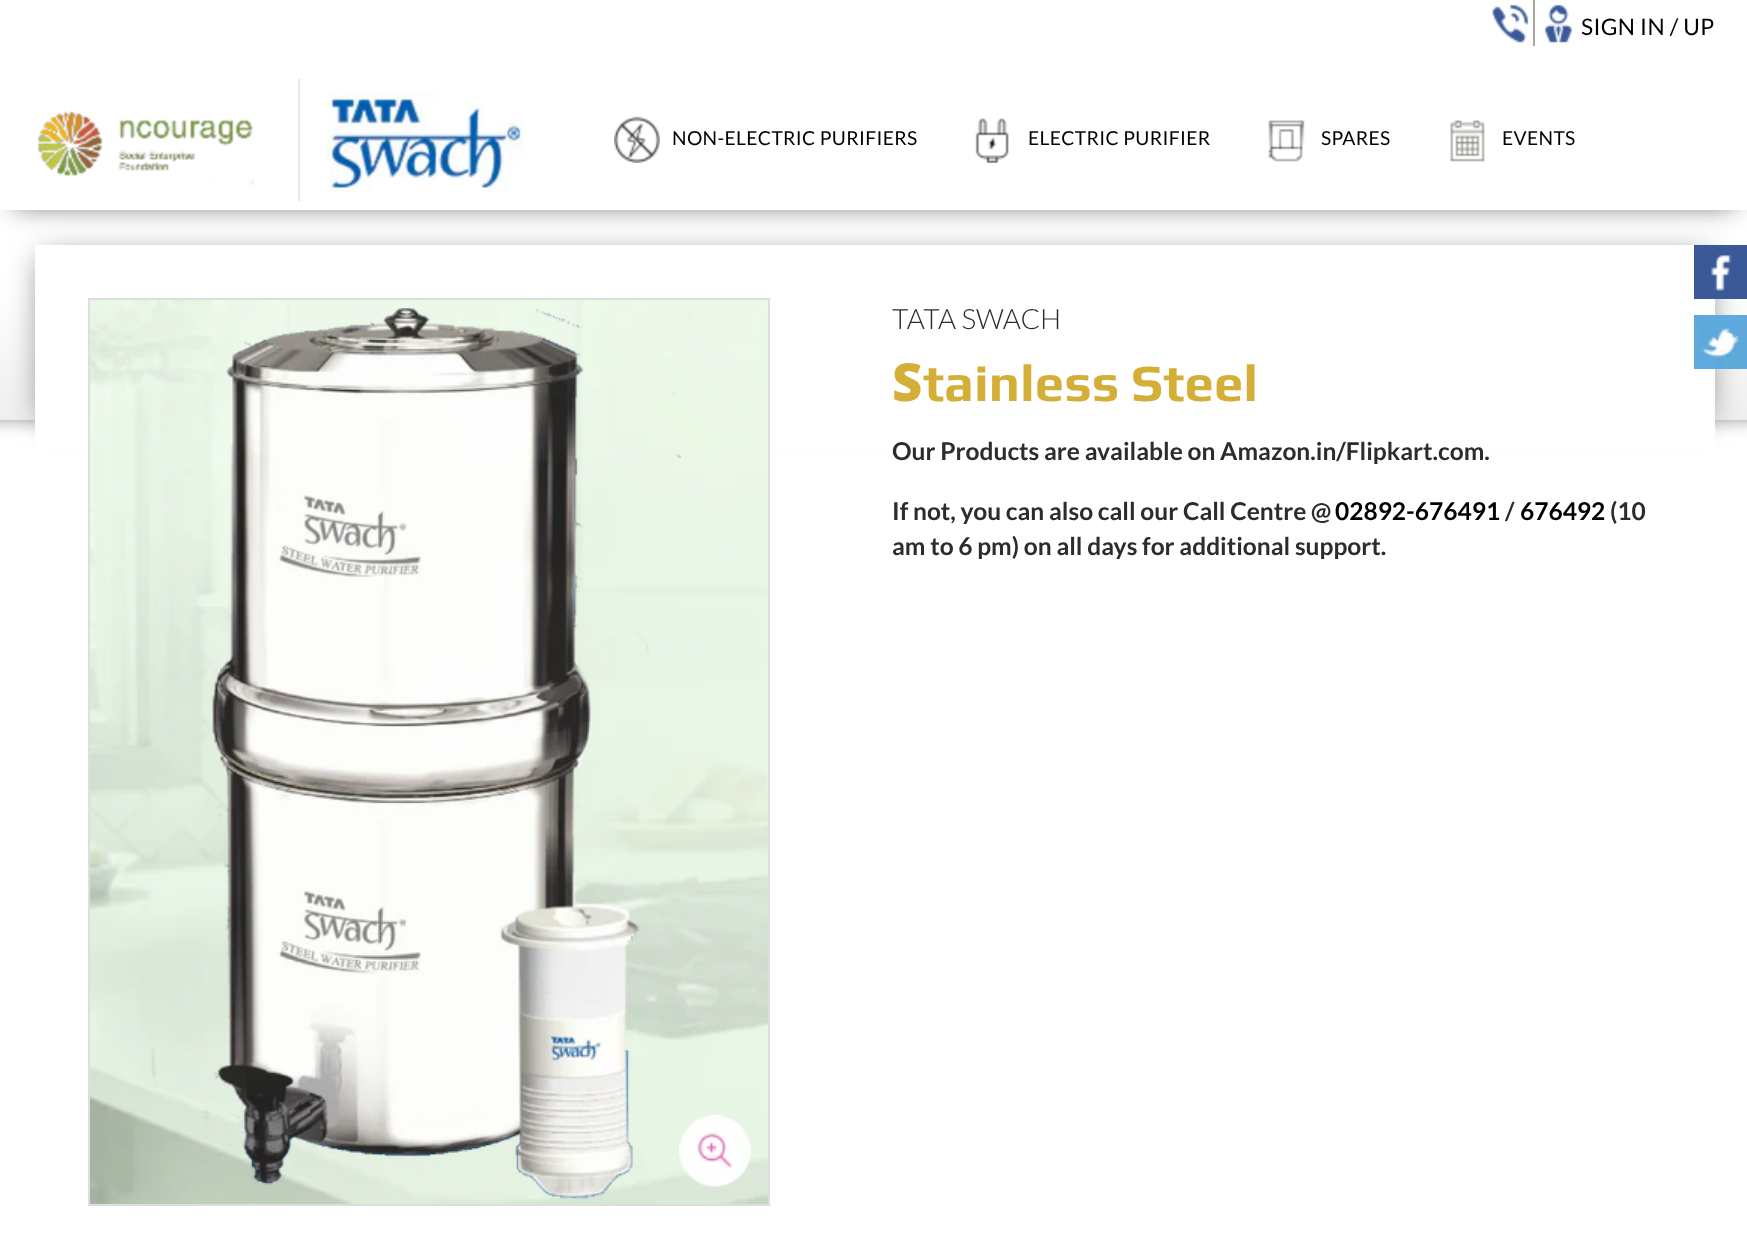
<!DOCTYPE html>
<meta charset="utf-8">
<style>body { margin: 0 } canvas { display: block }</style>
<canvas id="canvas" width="1747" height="1252"></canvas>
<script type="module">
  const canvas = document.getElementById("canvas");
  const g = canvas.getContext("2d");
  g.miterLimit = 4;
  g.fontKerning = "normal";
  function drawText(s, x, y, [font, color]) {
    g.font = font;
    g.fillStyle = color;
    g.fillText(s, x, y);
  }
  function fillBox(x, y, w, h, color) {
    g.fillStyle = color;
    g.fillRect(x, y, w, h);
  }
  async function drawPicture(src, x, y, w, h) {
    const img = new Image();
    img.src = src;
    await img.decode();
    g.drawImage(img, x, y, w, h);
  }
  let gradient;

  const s1 = ["22.75px Lato", "#000000"];
  const s2 = ["19.25px Lato", "#000000"];
  const s3 = ["300 28px Lato", "#2C2C2C"];
  const s4 = ["900 52.5px Noto Sans", "#D4AF37"];
  const s5 = ["bold 52.5px Play", "#D4AF37"];
  const s6 = ["bold 24.5px Lato", "#2C2C2C"];
  const s7 = ["bold 24.5px Lato", "#000000"];

  fillBox(0, 0, 1747, 1252, "#FFFFFF");
  g.fillStyle = "#777777";
  g.filter = "blur(9.5px)";
  g.beginPath();
  g.rect(-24, 70, 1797, 347);
  g.fill();
  g.filter = "none";
  gradient = g.createLinearGradient(874, 122, 874, 420);
  gradient.addColorStop(0.55, "#FFFFFF");
  gradient.addColorStop(1, "#EFEFEF");
  g.fillStyle = gradient;
  g.fillRect(0, 210, 1747, 210);
  g.fillStyle = "#777777";
  g.filter = "blur(16px)";
  g.beginPath();
  g.rect(42, 257, 1666, 161);
  g.fill();
  g.filter = "none";
  fillBox(35, 245, 1680, 206, "#FFFFFF");
  g.fillStyle = "rgba(0, 0, 0, 0.75)";
  g.filter = "blur(14px)";
  g.beginPath();
  g.rect(14, 21, 1720, 182);
  g.fill();
  g.filter = "none";
  fillBox(0, 0, 1747, 210, "#FFFFFF");
  fillBox(1533, 0, 2, 46, "#A8A59A");
  await drawPicture("pic1.png", 1492, 4, 37, 39);
  await drawPicture("pic2.png", 1544, 4, 28, 39);
  g.letterSpacing = "0.35px";
  drawText("SIGN IN / UP", 1581, 35, s1);
  await drawPicture("pic3.png", 37, 111, 217, 74);
  fillBox(298, 79, 2, 122, "#E7E7E7");
  await drawPicture("pic4.png", 327, 92, 197, 100);
  await drawPicture("pic5.png", 614, 116, 46, 47);
  drawText("NON-ELECTRIC PURIFIERS", 672, 145, s2);
  await drawPicture("pic6.png", 975, 118, 34, 45);
  drawText("ELECTRIC PURIFIER", 1028, 145, s2);
  await drawPicture("pic7.png", 1268, 120, 37, 42);
  drawText("SPARES", 1321, 145, s2);
  await drawPicture("pic8.png", 1450, 120, 35, 42);
  drawText("EVENTS", 1502, 145, s2);
  await drawPicture("pic9.png", 90, 300, 678, 904);
  g.strokeStyle = "#DEDEDE";
  g.lineWidth = 2;
  g.strokeRect(89, 299, 680, 906);
  await drawPicture("pic10.png", 151, 308, 570, 891);
  await drawPicture("pic11.png", 679, 1114, 72, 73);
  g.letterSpacing = "0px";
  drawText("TATA SWACH", 892, 329, s3);
  drawText("S", 892, 401, s4);
  drawText("tainless Steel", 923, 401, s5);
  drawText("Our Products are available on Amazon.in/Flipkart.com.", 892, 460, s6);
  drawText("If not, you can also call our Call Centre @", 892, 520, s6);
  drawText("02892-676491", 1335, 520, s7);
  drawText("/", 1505, 520, s6);
  drawText("676492", 1520, 520, s7);
  drawText("(10", 1610, 520, s6);
  drawText("am to 6 pm) on all days for additional support.", 892, 555, s6);
  await drawPicture("pic12.png", 1694, 245, 53, 54);
  await drawPicture("pic13.png", 1694, 315, 53, 54);
</script>
